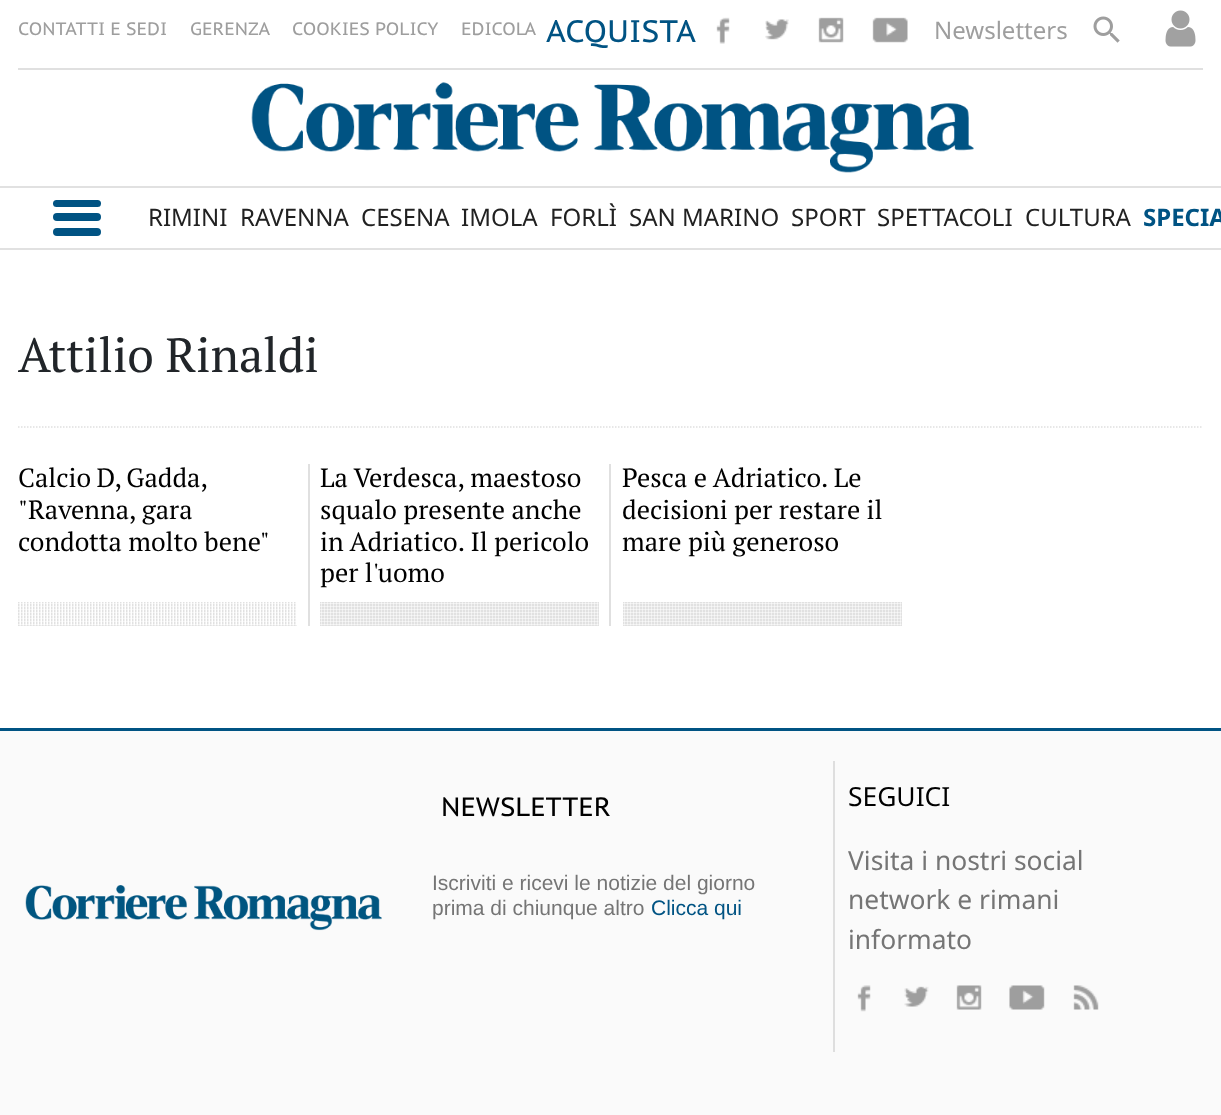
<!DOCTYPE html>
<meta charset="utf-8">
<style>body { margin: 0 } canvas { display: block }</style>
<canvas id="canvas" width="1221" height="1115"></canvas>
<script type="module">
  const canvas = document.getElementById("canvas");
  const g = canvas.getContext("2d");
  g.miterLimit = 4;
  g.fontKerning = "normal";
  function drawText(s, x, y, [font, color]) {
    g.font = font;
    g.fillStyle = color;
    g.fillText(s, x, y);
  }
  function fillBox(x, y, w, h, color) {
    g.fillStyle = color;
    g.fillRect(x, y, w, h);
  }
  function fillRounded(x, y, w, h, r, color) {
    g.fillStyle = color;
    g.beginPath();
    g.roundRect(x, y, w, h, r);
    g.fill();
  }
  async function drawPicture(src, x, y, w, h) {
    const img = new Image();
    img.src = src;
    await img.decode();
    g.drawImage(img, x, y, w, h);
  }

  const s1 = ["18px PT Sans Caption", "#9E9E9E"];
  const s2 = ["31px PT Sans Caption", "#005383"];
  const s3 = ["24px Noto Sans", "#9E9E9E"];
  const s4 = ["24px Noto Sans", "#212121"];
  const s5 = ["bold 24px Noto Sans", "#005383"];
  const s6 = ["48px PT Serif", "#212529"];
  const s7 = ["26.4px PT Serif", "#000000"];
  const s8 = ["26.4px PT Sans Caption", "#000000"];
  const s9 = ["21px Liberation Sans", "#757575"];
  const s10 = ["21px Liberation Sans", "#005383"];
  const s11 = ["26.4px Noto Sans", "#000000"];
  const s12 = ["26.4px Noto Sans", "#757575"];

  fillBox(0, 0, 1221, 1115, "#FFFFFF");
  drawText("CONTATTI E SEDI", 18, 35, s1);
  drawText("GERENZA", 190, 35, s1);
  drawText("COOKIES POLICY", 292, 35, s1);
  drawText("EDICOLA", 461, 35, s1);
  drawText("ACQUISTA", 546, 42, s2);
  await drawPicture("pic1.png", 716, 17, 14, 27);
  await drawPicture("pic2.png", 765, 19, 24, 21);
  await drawPicture("pic3.png", 818, 17, 26, 26);
  await drawPicture("pic4.png", 872, 17, 36, 26);
  drawText("Newsletters", 934, 39, s3);
  await drawPicture("pic5.png", 1093, 16, 27, 27);
  await drawPicture("pic6.png", 1165, 10, 31, 37);
  fillBox(18, 68, 1185, 2, "#E0E0E0");
  await drawPicture("pic7.png", 251, 82, 723, 91);
  fillBox(0, 186, 1221, 2, "#E1E1E1");
  fillBox(0, 248, 1221, 2, "#E1E1E1");
  fillRounded(53, 200, 48, 7, 3.5, "#005383");
  fillRounded(53, 213, 48, 8, 4, "#005383");
  fillRounded(53, 228, 48, 8, 4, "#005383");
  drawText("RIMINI", 148, 226, s4);
  drawText("RAVENNA", 240, 226, s4);
  drawText("CESENA", 361, 226, s4);
  drawText("IMOLA", 461, 226, s4);
  drawText("FORLÌ", 550, 226, s4);
  drawText("SAN MARINO", 629, 226, s4);
  drawText("SPORT", 791, 226, s4);
  drawText("SPETTACOLI", 877, 226, s4);
  drawText("CULTURA", 1025, 226, s4);
  drawText("SPECIA", 1143, 226, s5);
  g.beginPath();
  g.moveTo(18, 427);
  g.lineTo(1203, 427);
  g.strokeStyle = "#E0E0E0";
  g.lineWidth = 1.5;
  g.setLineDash([1.5, 1.5]);
  g.stroke();
  drawText("Attilio Rinaldi", 18, 372, s6);
  g.wordSpacing = "-1px";
  drawText("Calcio D, Gadda,", 18, 487, s7);
  g.wordSpacing = "0px";
  drawText("\"Ravenna, gara", 18, 519, s7);
  drawText("condotta molto bene\"", 18, 551, s7);
  fillBox(18, 602, 279, 24, "#E1E1E1");
  await drawPicture("pic8.png", 18, 602, 279, 24);
  fillBox(308, 464, 2, 162, "#E0E0E0");
  drawText("La Verdesca, maestoso", 320, 487, s7);
  drawText("squalo presente anche", 320, 519, s7);
  drawText("in Adriatico. Il pericolo", 320, 551, s7);
  drawText("per l'uomo", 320, 582, s7);
  fillBox(320, 602, 279, 24, "#E1E1E1");
  await drawPicture("pic9.png", 320, 602, 279, 24);
  fillBox(609, 464, 2, 162, "#E0E0E0");
  drawText("Pesca e Adriatico. Le", 622, 487, s7);
  drawText("decisioni per restare il", 622, 519, s7);
  drawText("mare più generoso", 622, 551, s7);
  fillBox(623, 602, 279, 24, "#E1E1E1");
  await drawPicture("pic9.png", 623, 602, 279, 24);
  fillBox(0, 731, 1221, 384, "#FAFAFA");
  fillBox(0, 728, 1221, 3, "#005383");
  await drawPicture("pic10.png", 25, 885, 357, 46);
  drawText("NEWSLETTER", 441, 816, s8);
  drawText("Iscriviti e ricevi le notizie del giorno", 432, 890, s9);
  drawText("prima di chiunque altro", 432, 915, s9);
  drawText("Clicca qui", 651, 915, s10);
  fillBox(833, 761, 2, 291, "#DEDEDE");
  drawText("SEGUICI", 848, 806, s11);
  drawText("Visita i nostri social", 848, 870, s12);
  drawText("network e rimani", 848, 909, s12);
  drawText("informato", 848, 949, s12);
  await drawPicture("pic11.png", 857, 985, 14, 27);
  await drawPicture("pic12.png", 904, 986, 25, 21);
  await drawPicture("pic13.png", 956, 985, 26, 25);
  await drawPicture("pic14.png", 1009, 985, 36, 25);
  await drawPicture("pic15.png", 1073, 985, 26, 25);
</script>
